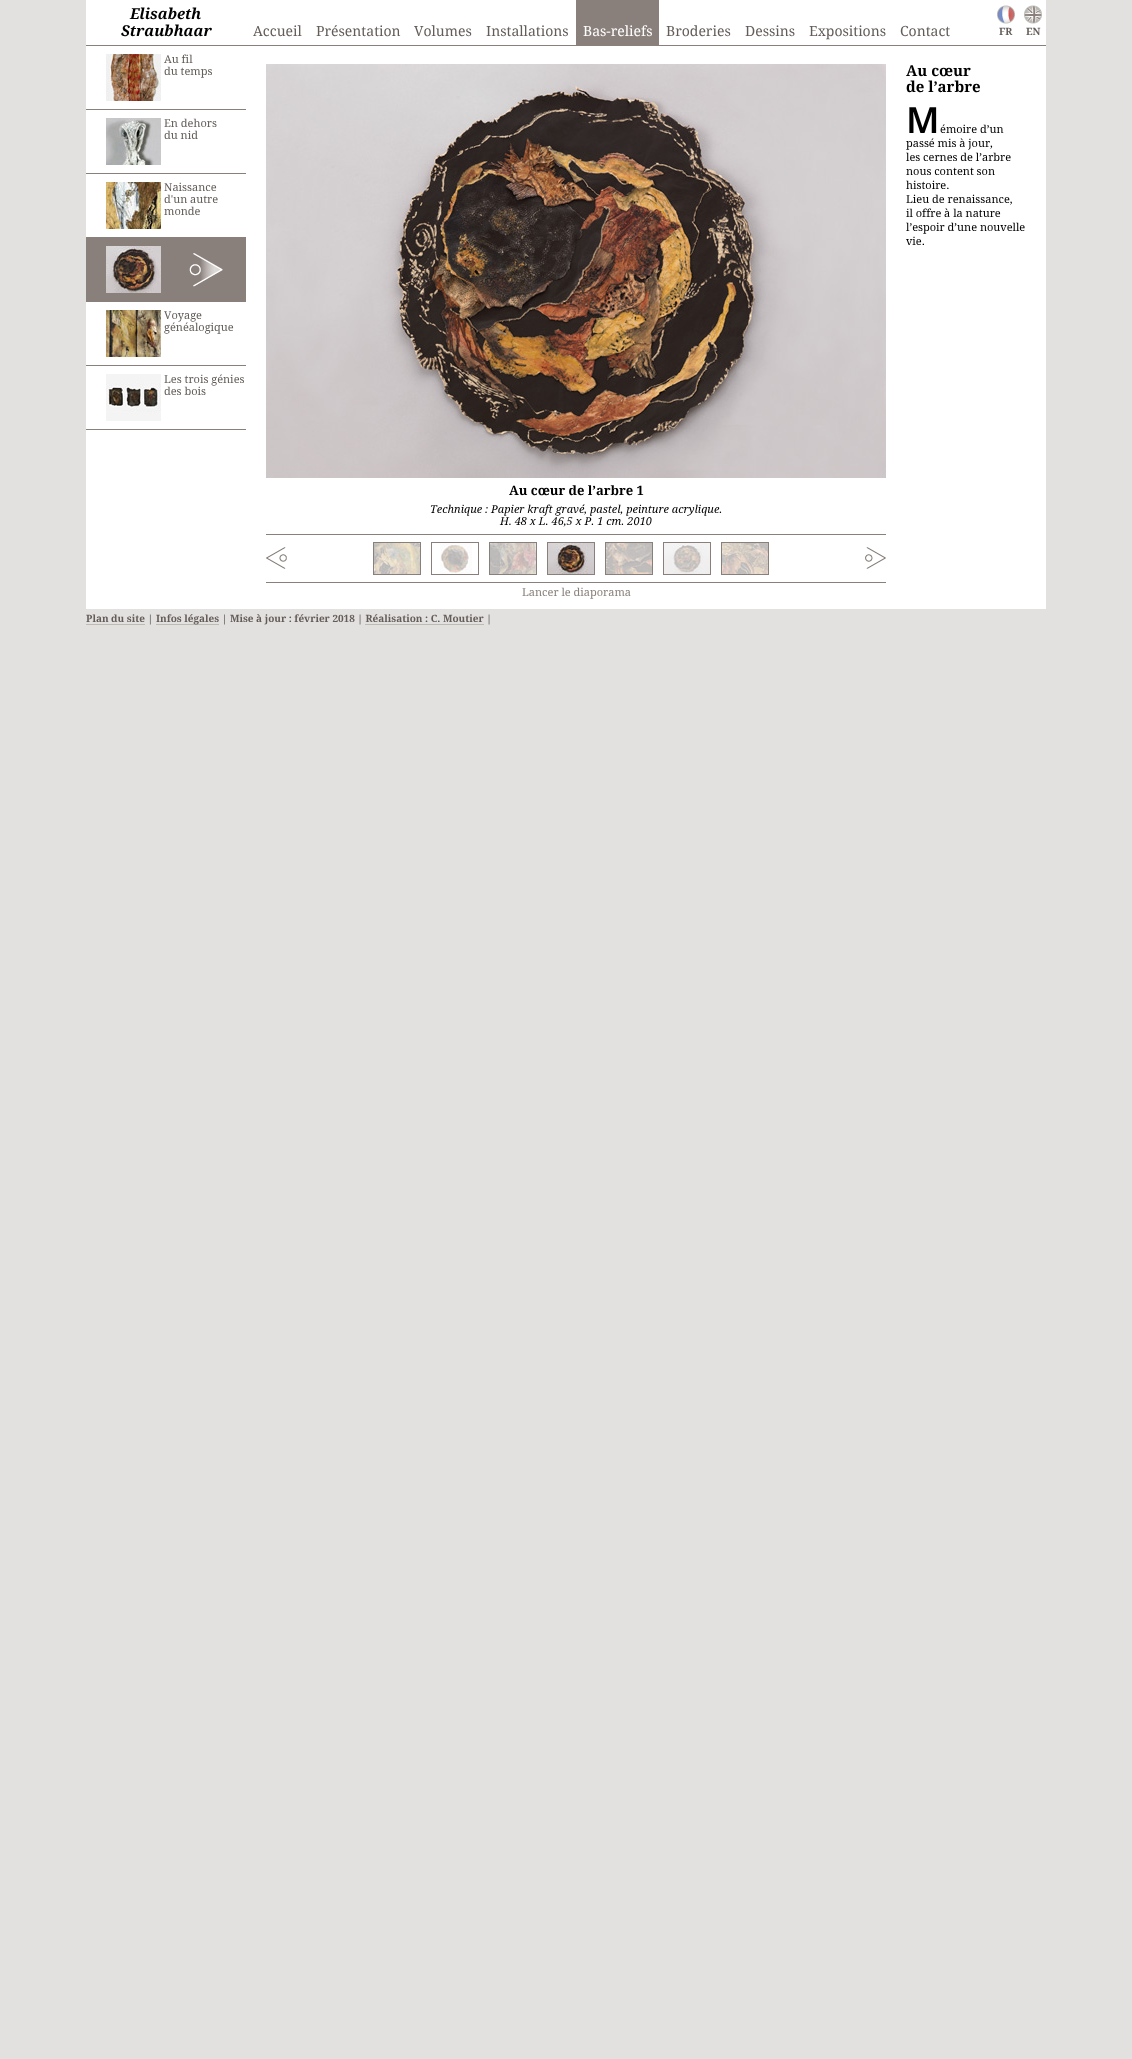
<!DOCTYPE html>
<meta charset="utf-8">
<style>body { margin: 0 } canvas { display: block }</style>
<canvas id="canvas" width="1132" height="2059"></canvas>
<script type="module">
  const canvas = document.getElementById("canvas");
  const g = canvas.getContext("2d");
  g.miterLimit = 4;
  g.fontKerning = "normal";
  function drawText(s, x, y, [font, color]) {
    g.font = font;
    g.fillStyle = color;
    g.fillText(s, x, y);
  }
  function fillBox(x, y, w, h, color) {
    g.fillStyle = color;
    g.fillRect(x, y, w, h);
  }
  async function drawPicture(src, x, y, w, h) {
    const img = new Image();
    img.src = src;
    await img.decode();
    g.drawImage(img, x, y, w, h);
  }

  const s1 = ["italic bold 15px Droid Serif", "#000000"];
  const s2 = ["14px Droid Serif", "#635C59"];
  const s3 = ["14px Droid Serif", "#FFFFFF"];
  const s4 = ["bold 10px Droid Serif", "#635C59"];
  const s5 = ["11px Droid Serif", "#635C59"];
  const s6 = ["bold 15px Droid Serif", "#000000"];
  const s7 = ["600 36px Noto Sans", "#000000"];
  const s8 = ["11px Droid Serif", "#000000"];
  const s9 = ["bold 13px Droid Serif", "#000000"];
  const s10 = ["italic 11px Droid Serif", "#000000"];
  const s11 = ["11px Droid Serif", "#8A807B"];

  fillBox(0, 0, 1132, 2059, "#E3E1DF");
  fillBox(86, 46, 960, 563, "#FFFFFF");
  fillBox(86, 0, 960, 45, "#FFFFFF");
  fillBox(86, 45, 960, 1, "#8A807B");
  drawText("Elisabeth", 130, 19, s1);
  drawText("Straubhaar", 121, 36, s1);
  drawText("Accueil", 253, 36, s2);
  drawText("Présentation", 316, 36, s2);
  drawText("Volumes", 414, 36, s2);
  drawText("Installations", 486, 36, s2);
  fillBox(576, 0, 83, 45, "#8A807B");
  drawText("Bas-reliefs", 583, 36, s3);
  drawText("Broderies", 666, 36, s2);
  drawText("Dessins", 745, 36, s2);
  drawText("Expositions", 809, 36, s2);
  drawText("Contact", 900, 36, s2);
  await drawPicture("pic1.png", 997, 5, 18, 19);
  drawText("FR", 999, 35, s4);
  await drawPicture("pic2.png", 1024, 5, 18, 19);
  drawText("EN", 1026, 35, s4);
  fillBox(86, 109, 160, 1, "#8A807B");
  await drawPicture("pic3.png", 106, 54, 55, 47);
  drawText("Au fil", 164, 63, s5);
  drawText("du temps", 164, 75, s5);
  fillBox(86, 173, 160, 1, "#8A807B");
  await drawPicture("pic4.png", 106, 118, 55, 47);
  drawText("En dehors", 164, 127, s5);
  drawText("du nid", 164, 139, s5);
  fillBox(86, 237, 160, 1, "#8A807B");
  await drawPicture("pic5.png", 106, 182, 55, 47);
  drawText("Naissance", 164, 191, s5);
  drawText("d'un autre", 164, 203, s5);
  drawText("monde", 164, 215, s5);
  fillBox(86, 238, 160, 64, "#8A807B");
  await drawPicture("pic6.png", 189, 253, 34, 34);
  await drawPicture("pic7.png", 106, 246, 55, 47);
  fillBox(86, 365, 160, 1, "#8A807B");
  await drawPicture("pic8.png", 106, 310, 55, 47);
  drawText("Voyage", 164, 319, s5);
  drawText("généalogique", 164, 331, s5);
  fillBox(86, 429, 160, 1, "#8A807B");
  await drawPicture("pic9.png", 106, 374, 55, 47);
  drawText("Les trois génies", 164, 383, s5);
  drawText("des bois", 164, 395, s5);
  drawText("Au cœur", 906, 76, s6);
  drawText("de l’arbre", 906, 92, s6);
  drawText("M", 906, 133, s7);
  drawText("émoire d’un", 940, 133, s8);
  drawText("passé mis à jour,", 906, 147, s8);
  drawText("les cernes de l’arbre", 906, 161, s8);
  drawText("nous content son", 906, 175, s8);
  drawText("histoire.", 906, 189, s8);
  drawText("Lieu de renaissance,", 906, 203, s8);
  drawText("il offre à la nature", 906, 217, s8);
  drawText("l’espoir d’une nouvelle", 906, 231, s8);
  drawText("vie.", 906, 245, s8);
  await drawPicture("pic10.png", 266, 64, 620, 414);
  drawText("Au cœur de l’arbre 1", 509, 495, s9);
  drawText("Technique : Papier kraft gravé, pastel, peinture acrylique.", 430, 513, s10);
  drawText("H. 48 x L. 46,5 x P. 1 cm. 2010", 500, 525, s10);
  fillBox(266, 534, 620, 1, "#8A807B");
  fillBox(266, 582, 620, 1, "#8A807B");
  await drawPicture("pic11.png", 266, 547, 21, 22);
  g.strokeStyle = "#8A807B";
  g.strokeRect(373.5, 542.5, 47, 32);
  await drawPicture("pic12.png", 374, 543, 46, 31);
  g.strokeRect(431.5, 542.5, 47, 32);
  await drawPicture("pic13.png", 440, 543, 32, 31);
  g.strokeRect(489.5, 542.5, 47, 32);
  await drawPicture("pic14.png", 490, 543, 46, 31);
  g.strokeRect(547.5, 542.5, 47, 32);
  await drawPicture("pic15.png", 548, 543, 46, 31);
  g.strokeRect(605.5, 542.5, 47, 32);
  await drawPicture("pic16.png", 606, 543, 46, 31);
  g.strokeRect(663.5, 542.5, 47, 32);
  await drawPicture("pic17.png", 664, 543, 46, 31);
  g.strokeRect(721.5, 542.5, 47, 32);
  await drawPicture("pic18.png", 722, 543, 46, 31);
  await drawPicture("pic19.png", 865, 547, 21, 22);
  drawText("Lancer le diaporama", 522, 596, s11);
  fillBox(86, 624, 59, 1, "#BFBAB4");
  drawText("Plan du site |", 86, 622, s4);
  fillBox(156, 624, 63, 1, "#BFBAB4");
  drawText("Infos légales | Mise à jour : février 2018 | Réalisation : C. Moutier |", 156, 622, s4);
  fillBox(365, 624, 119, 1, "#BFBAB4");
</script>
